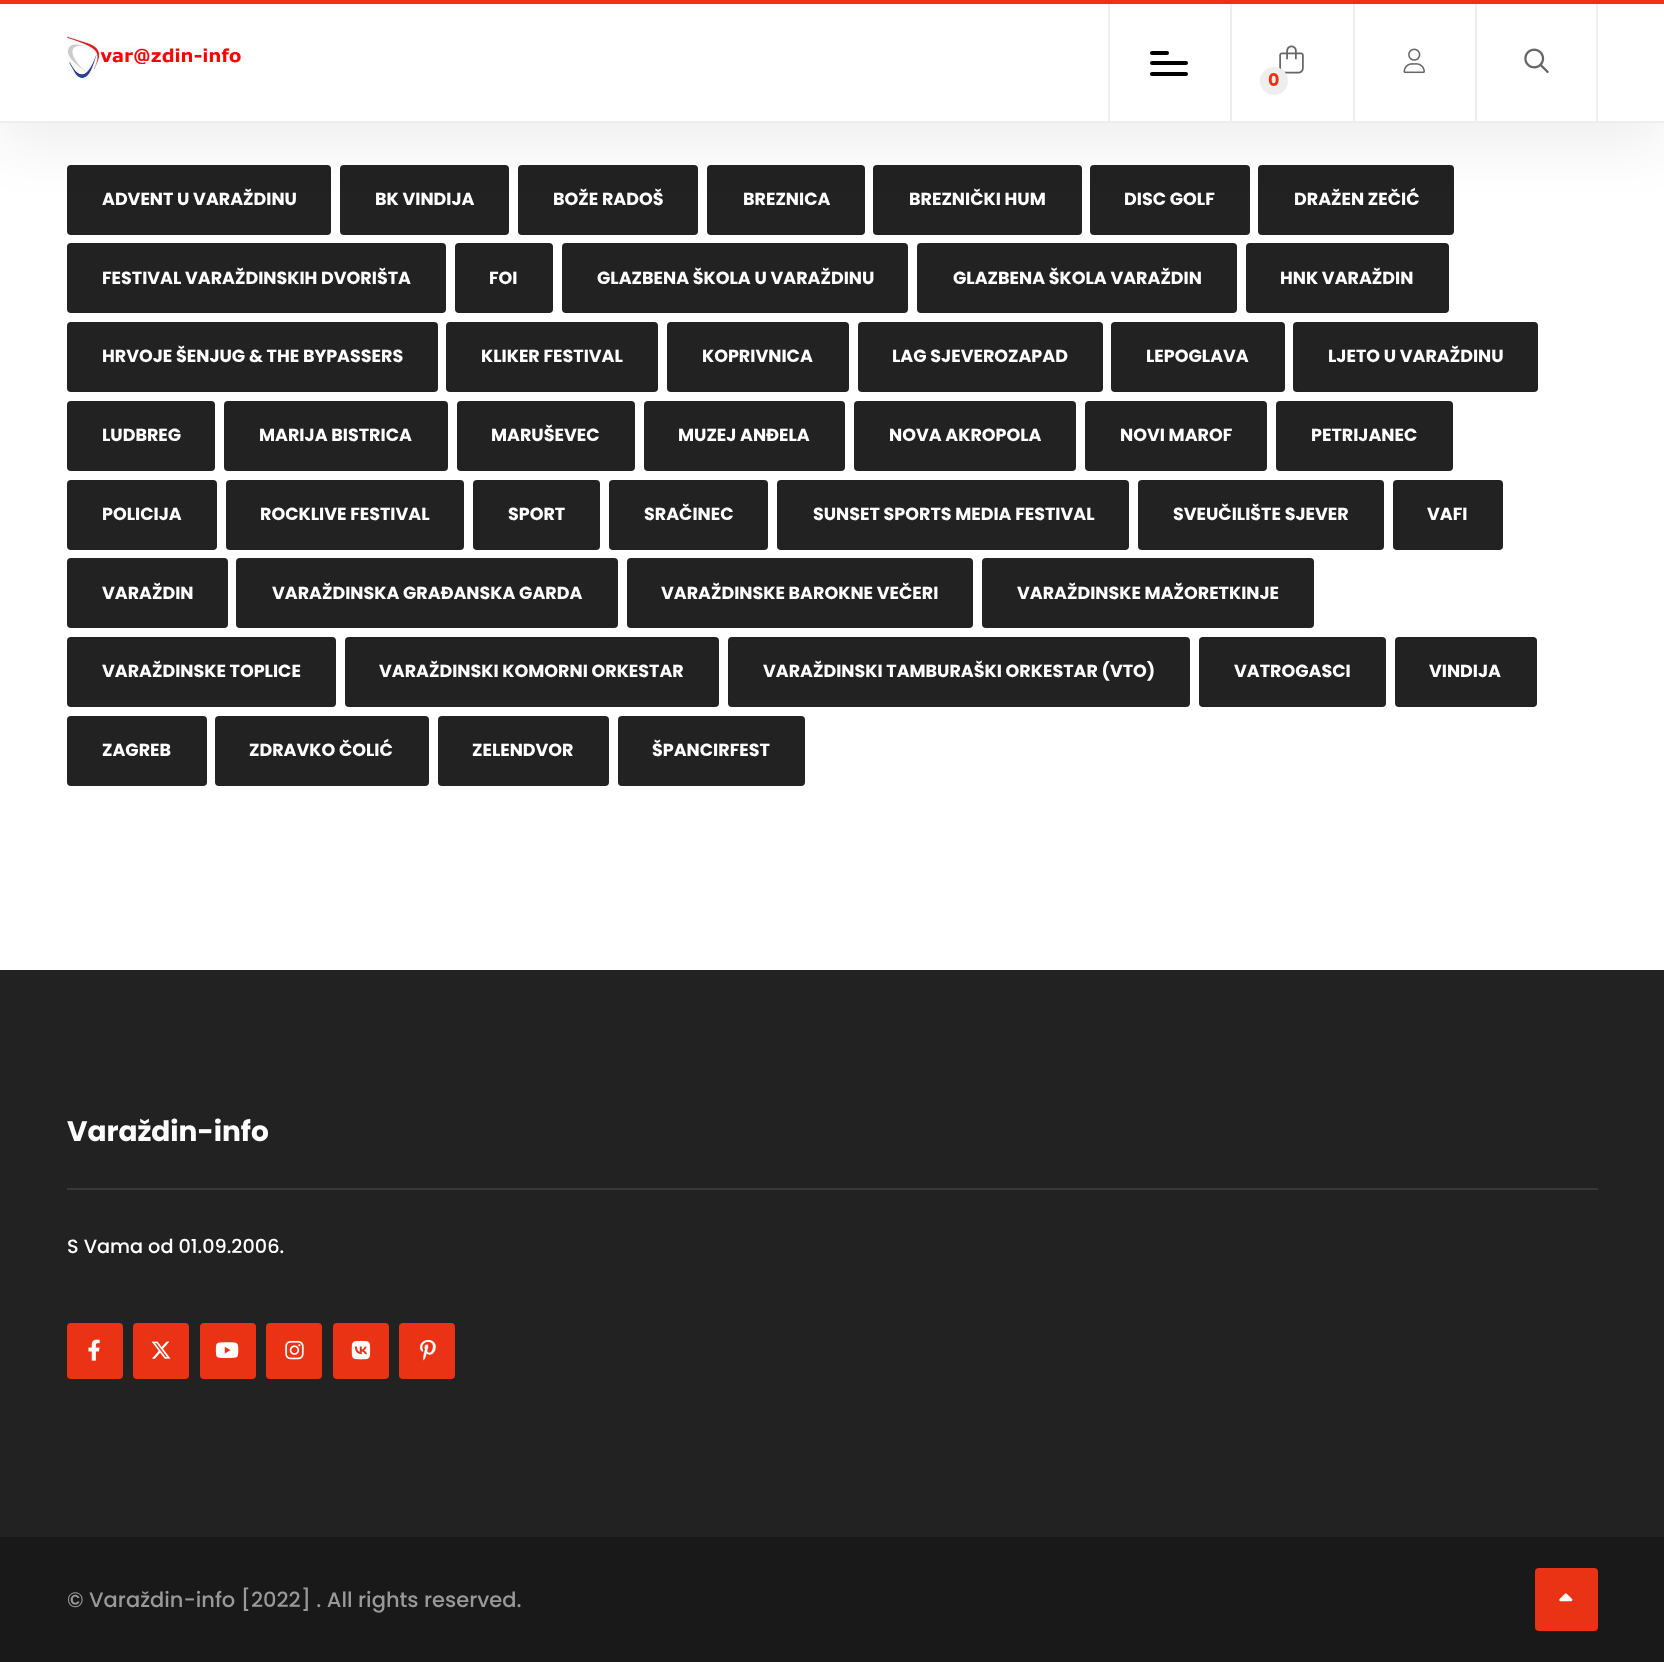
<!DOCTYPE html>
<meta charset="utf-8">
<style>body { margin: 0 } canvas { display: block }</style>
<canvas id="canvas" width="1664" height="1662"></canvas>
<script type="module">
  const canvas = document.getElementById("canvas");
  const g = canvas.getContext("2d");
  g.miterLimit = 4;
  g.fontKerning = "normal";
  function drawText(s, x, y, [font, color]) {
    g.font = font;
    g.fillStyle = color;
    g.fillText(s, x, y);
  }
  function fillBox(x, y, w, h, color) {
    g.fillStyle = color;
    g.fillRect(x, y, w, h);
  }
  function fillRounded(x, y, w, h, r, color) {
    g.fillStyle = color;
    g.beginPath();
    g.roundRect(x, y, w, h, r);
    g.fill();
  }
  async function drawPicture(src, x, y, w, h) {
    const img = new Image();
    img.src = src;
    await img.decode();
    g.drawImage(img, x, y, w, h);
  }

  const s1 = ["bold 17.5px Poppins", "#E93314"];
  const s2 = ["bold 17.5px Poppins", "#FFFFFF"];
  const s3 = ["bold 28px Poppins", "#FFFFFF"];
  const s4 = ["500 19.25px Poppins", "#FFFFFF"];
  const s5 = ["500 21px Poppins", "#999999"];

  fillBox(0, 0, 1664, 1662, "#FFFFFF");
  fillRounded(67, 165, 264, 70, 4, "#222222");
  fillRounded(340, 165, 169, 70, 4, "#222222");
  fillRounded(518, 165, 180, 70, 4, "#222222");
  fillRounded(707, 165, 158, 70, 4, "#222222");
  fillRounded(873, 165, 209, 70, 4, "#222222");
  fillRounded(1090, 165, 160, 70, 4, "#222222");
  fillRounded(1258, 165, 196, 70, 4, "#222222");
  g.fillStyle = "rgba(0, 0, 0, 0.06)";
  g.filter = "blur(26px)";
  g.beginPath();
  g.rect(0, 26, 1664, 123);
  g.fill();
  g.filter = "none";
  fillBox(0, 4, 1664, 117, "#FFFFFF");
  fillBox(0, 121, 1664, 2, "#EEEEEE");
  fillBox(1108, 0, 2, 123, "#EEEEEE");
  fillBox(1230, 0, 2, 123, "#EEEEEE");
  fillBox(1353, 0, 2, 123, "#EEEEEE");
  fillBox(1596, 0, 2, 123, "#EEEEEE");
  fillBox(1475, 0, 2, 123, "#EEEEEE");
  fillBox(0, 0, 1664, 4, "#E93314");
  await drawPicture("pic1.png", 67, 35, 174, 44);
  fillRounded(1150, 51, 19, 4, 2, "#000000");
  fillRounded(1150, 61, 38, 4, 2, "#000000");
  fillRounded(1150, 72, 38, 4, 2, "#000000");
  await drawPicture("pic2.png", 1279, 45, 25, 29);
  g.fillStyle = "#EEEEEE";
  g.beginPath();
  g.arc(1274, 81, 14, 0, Math.PI * 2);
  g.fill();
  drawText("0", 1268, 86, s1);
  await drawPicture("pic3.png", 1403, 48, 22, 26);
  await drawPicture("pic4.png", 1524, 48, 25, 25);
  drawText("ADVENT U VARAŽDINU", 102, 205, s2);
  drawText("BK VINDIJA", 375, 205, s2);
  drawText("BOŽE RADOŠ", 553, 205, s2);
  drawText("BREZNICA", 743, 205, s2);
  drawText("BREZNIČKI HUM", 909, 205, s2);
  drawText("DISC GOLF", 1124, 205, s2);
  drawText("DRAŽEN ZEČIĆ", 1294, 205, s2);
  fillRounded(67, 243, 379, 70, 4, "#222222");
  drawText("FESTIVAL VARAŽDINSKIH DVORIŠTA", 102, 284, s2);
  fillRounded(455, 243, 98, 70, 4, "#222222");
  drawText("FOI", 489, 284, s2);
  fillRounded(562, 243, 346, 70, 4, "#222222");
  drawText("GLAZBENA ŠKOLA U VARAŽDINU", 597, 284, s2);
  fillRounded(917, 243, 320, 70, 4, "#222222");
  drawText("GLAZBENA ŠKOLA VARAŽDIN", 953, 284, s2);
  fillRounded(1246, 243, 203, 70, 4, "#222222");
  drawText("HNK VARAŽDIN", 1280, 284, s2);
  fillRounded(67, 322, 371, 70, 4, "#222222");
  drawText("HRVOJE ŠENJUG & THE BYPASSERS", 102, 362, s2);
  fillRounded(446, 322, 212, 70, 4, "#222222");
  drawText("KLIKER FESTIVAL", 481, 362, s2);
  fillRounded(667, 322, 182, 70, 4, "#222222");
  drawText("KOPRIVNICA", 702, 362, s2);
  fillRounded(858, 322, 245, 70, 4, "#222222");
  drawText("LAG SJEVEROZAPAD", 892, 362, s2);
  fillRounded(1111, 322, 174, 70, 4, "#222222");
  drawText("LEPOGLAVA", 1146, 362, s2);
  fillRounded(1293, 322, 245, 70, 4, "#222222");
  drawText("LJETO U VARAŽDINU", 1328, 362, s2);
  fillRounded(67, 401, 148, 70, 4, "#222222");
  drawText("LUDBREG", 102, 441, s2);
  fillRounded(224, 401, 224, 70, 4, "#222222");
  drawText("MARIJA BISTRICA", 259, 441, s2);
  fillRounded(457, 401, 178, 70, 4, "#222222");
  drawText("MARUŠEVEC", 491, 441, s2);
  fillRounded(644, 401, 201, 70, 4, "#222222");
  drawText("MUZEJ ANĐELA", 678, 441, s2);
  fillRounded(854, 401, 222, 70, 4, "#222222");
  drawText("NOVA AKROPOLA", 889, 441, s2);
  fillRounded(1085, 401, 182, 70, 4, "#222222");
  drawText("NOVI MAROF", 1120, 441, s2);
  fillRounded(1276, 401, 177, 70, 4, "#222222");
  drawText("PETRIJANEC", 1311, 441, s2);
  fillRounded(67, 480, 150, 70, 4, "#222222");
  drawText("POLICIJA", 102, 520, s2);
  fillRounded(226, 480, 238, 70, 4, "#222222");
  drawText("ROCKLIVE FESTIVAL", 260, 520, s2);
  fillRounded(473, 480, 127, 70, 4, "#222222");
  drawText("SPORT", 508, 520, s2);
  fillRounded(609, 480, 159, 70, 4, "#222222");
  drawText("SRAČINEC", 644, 520, s2);
  fillRounded(777, 480, 352, 70, 4, "#222222");
  drawText("SUNSET SPORTS MEDIA FESTIVAL", 813, 520, s2);
  fillRounded(1138, 480, 246, 70, 4, "#222222");
  drawText("SVEUČILIŠTE SJEVER", 1173, 520, s2);
  fillRounded(1393, 480, 110, 70, 4, "#222222");
  drawText("VAFI", 1427, 520, s2);
  fillRounded(67, 558, 161, 70, 4, "#222222");
  drawText("VARAŽDIN", 102, 599, s2);
  fillRounded(236, 558, 382, 70, 4, "#222222");
  drawText("VARAŽDINSKA GRAĐANSKA GARDA", 272, 599, s2);
  fillRounded(627, 558, 346, 70, 4, "#222222");
  drawText("VARAŽDINSKE BAROKNE VEČERI", 661, 599, s2);
  fillRounded(982, 558, 332, 70, 4, "#222222");
  drawText("VARAŽDINSKE MAŽORETKINJE", 1017, 599, s2);
  fillRounded(67, 637, 269, 70, 4, "#222222");
  drawText("VARAŽDINSKE TOPLICE", 102, 677, s2);
  fillRounded(345, 637, 374, 70, 4, "#222222");
  drawText("VARAŽDINSKI KOMORNI ORKESTAR", 379, 677, s2);
  fillRounded(728, 637, 462, 70, 4, "#222222");
  drawText("VARAŽDINSKI TAMBURAŠKI ORKESTAR (VTO)", 763, 677, s2);
  fillRounded(1199, 637, 187, 70, 4, "#222222");
  drawText("VATROGASCI", 1234, 677, s2);
  fillRounded(1395, 637, 142, 70, 4, "#222222");
  drawText("VINDIJA", 1429, 677, s2);
  fillRounded(67, 716, 140, 70, 4, "#222222");
  drawText("ZAGREB", 102, 756, s2);
  fillRounded(215, 716, 214, 70, 4, "#222222");
  drawText("ZDRAVKO ČOLIĆ", 249, 756, s2);
  fillRounded(438, 716, 171, 70, 4, "#222222");
  drawText("ZELENDVOR", 472, 756, s2);
  fillRounded(618, 716, 187, 70, 4, "#222222");
  drawText("ŠPANCIRFEST", 652, 756, s2);
  fillBox(0, 970, 1664, 567, "#222222");
  fillBox(67, 1188, 1531, 2, "#383838");
  drawText("Varaždin-info", 67, 1141, s3);
  drawText("S Vama od 01.09.2006.", 67, 1253, s4);
  fillRounded(67, 1323, 56, 56, 4, "#E93314");
  await drawPicture("pic5.png", 88, 1339, 12, 22);
  fillRounded(133, 1323, 56, 56, 4, "#E93314");
  await drawPicture("pic6.png", 151, 1341, 20, 18);
  fillRounded(200, 1323, 56, 56, 4, "#E93314");
  await drawPicture("pic7.png", 215, 1342, 24, 16);
  fillRounded(266, 1323, 56, 56, 4, "#E93314");
  await drawPicture("pic8.png", 285, 1340, 19, 20);
  fillRounded(333, 1323, 56, 56, 4, "#E93314");
  await drawPicture("pic9.png", 351, 1340, 20, 20);
  fillRounded(399, 1323, 56, 56, 4, "#E93314");
  await drawPicture("pic10.png", 420, 1339, 16, 22);
  fillBox(0, 1537, 1664, 125, "#191919");
  drawText("© Varaždin-info [2022] . All rights reserved.", 67, 1607, s5);
  fillRounded(1535, 1568, 63, 63, 4, "#E93314");
  await drawPicture("pic11.png", 1559, 1593, 14, 9);
</script>
